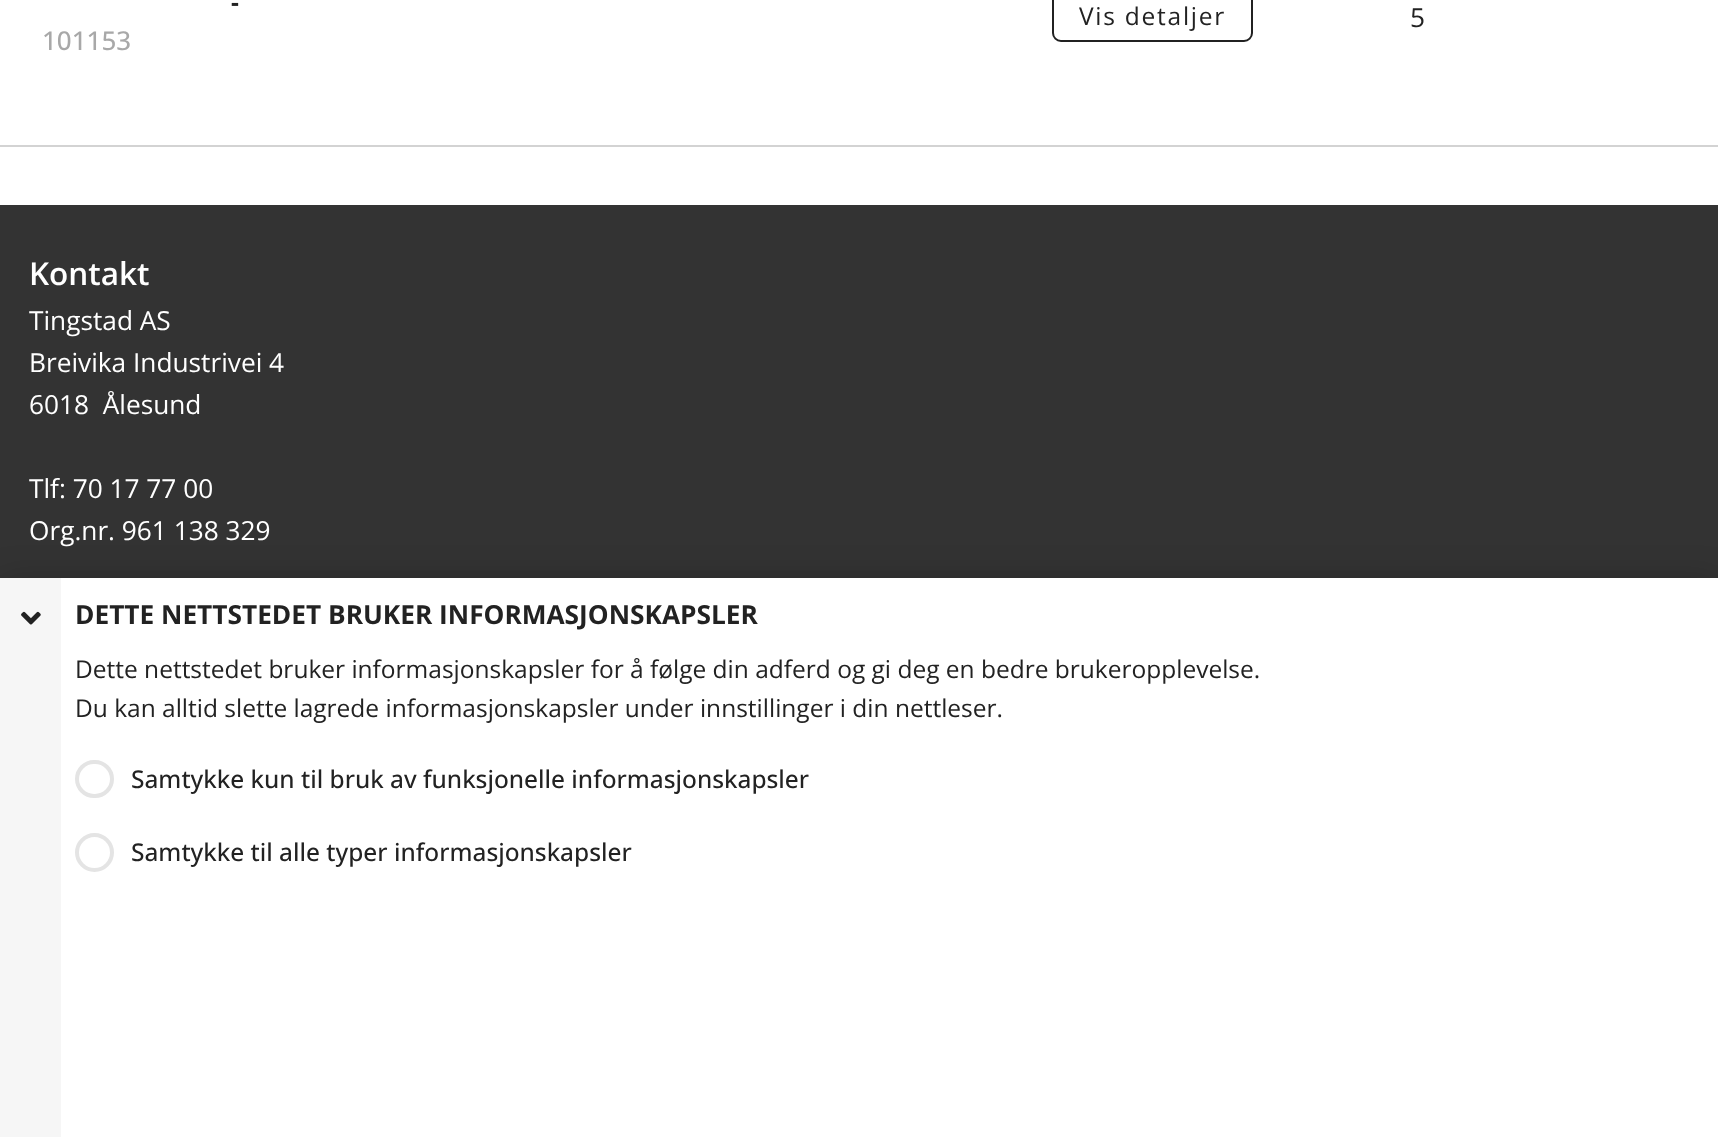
<!DOCTYPE html>
<meta charset="utf-8">
<style>body { margin: 0 } canvas { display: block }</style>
<canvas id="canvas" width="1718" height="1137"></canvas>
<script type="module">
  const canvas = document.getElementById("canvas");
  const g = canvas.getContext("2d");
  g.miterLimit = 4;
  g.fontKerning = "normal";
  function drawText(s, x, y, [font, color]) {
    g.font = font;
    g.fillStyle = color;
    g.fillText(s, x, y);
  }
  function fillBox(x, y, w, h, color) {
    g.fillStyle = color;
    g.fillRect(x, y, w, h);
  }
  async function drawPicture(src, x, y, w, h) {
    const img = new Image();
    img.src = src;
    await img.decode();
    g.drawImage(img, x, y, w, h);
  }

  const s1 = ["bold 24.5px Open Sans", "#222222"];
  const s2 = ["500 26px Open Sans", "#A8A8A8"];
  const s3 = ["24.5px Open Sans", "#222222"];
  const s4 = ["26.25px Open Sans", "#222222"];
  const s5 = ["600 31.5px Open Sans", "#FFFFFF"];
  const s6 = ["26.25px Open Sans", "#FFFFFF"];
  const s7 = ["bold 26.25px Open Sans", "#222222"];
  const s8 = ["500 24.5px Open Sans", "#222222"];

  fillBox(0, 0, 1718, 1137, "#FFFFFF");
  fillBox(0, 145, 1718, 2, "#D3D3D3");
  drawText("-", 231, 11, s1);
  drawText("101153", 42, 50, s2);
  g.beginPath();
  g.roundRect(1053, -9, 199, 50, 8);
  g.strokeStyle = "#212121";
  g.lineWidth = 2;
  g.stroke();
  g.letterSpacing = "1.75px";
  drawText("Vis detaljer", 1079, 25, s3);
  g.letterSpacing = "0px";
  drawText("5", 1410, 27, s4);
  fillBox(0, 205, 1718, 373, "#333333");
  drawText("Kontakt", 29, 285, s5);
  drawText("Tingstad AS", 29, 330, s6);
  drawText("Breivika Industrivei 4", 29, 372, s6);
  drawText("6018  Ålesund", 29, 414, s6);
  drawText("Tlf: 70 17 77 00", 29, 498, s6);
  drawText("Org.nr. 961 138 329", 29, 540, s6);
  g.fillStyle = "rgba(0, 0, 0, 0.18)";
  g.filter = "blur(16px)";
  g.beginPath();
  g.rect(0, 578, 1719, 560);
  g.fill();
  g.filter = "none";
  fillBox(61, 578, 1657, 559, "#FFFFFF");
  fillBox(0, 578, 61, 559, "#F6F6F6");
  await drawPicture("pic1.png", 21, 611, 20, 14);
  drawText("DETTE NETTSTEDET BRUKER INFORMASJONSKAPSLER", 75, 624, s7);
  drawText("Dette nettstedet bruker informasjonskapsler for å følge din adferd og gi deg en bedre brukeropplevelse.", 75, 678, s3);
  drawText("Du kan alltid slette lagrede informasjonskapsler under innstillinger i din nettleser.", 75, 717, s3);
  g.beginPath();
  g.roundRect(77, 762, 35, 34, 17);
  g.strokeStyle = "#E4E4E4";
  g.lineWidth = 4;
  g.stroke();
  drawText("Samtykke kun til bruk av funksjonelle informasjonskapsler", 131, 788, s8);
  g.beginPath();
  g.arc(94.5, 852.5, 17.5, 0, Math.PI * 2);
  g.stroke();
  drawText("Samtykke til alle typer informasjonskapsler", 131, 861, s8);
</script>
